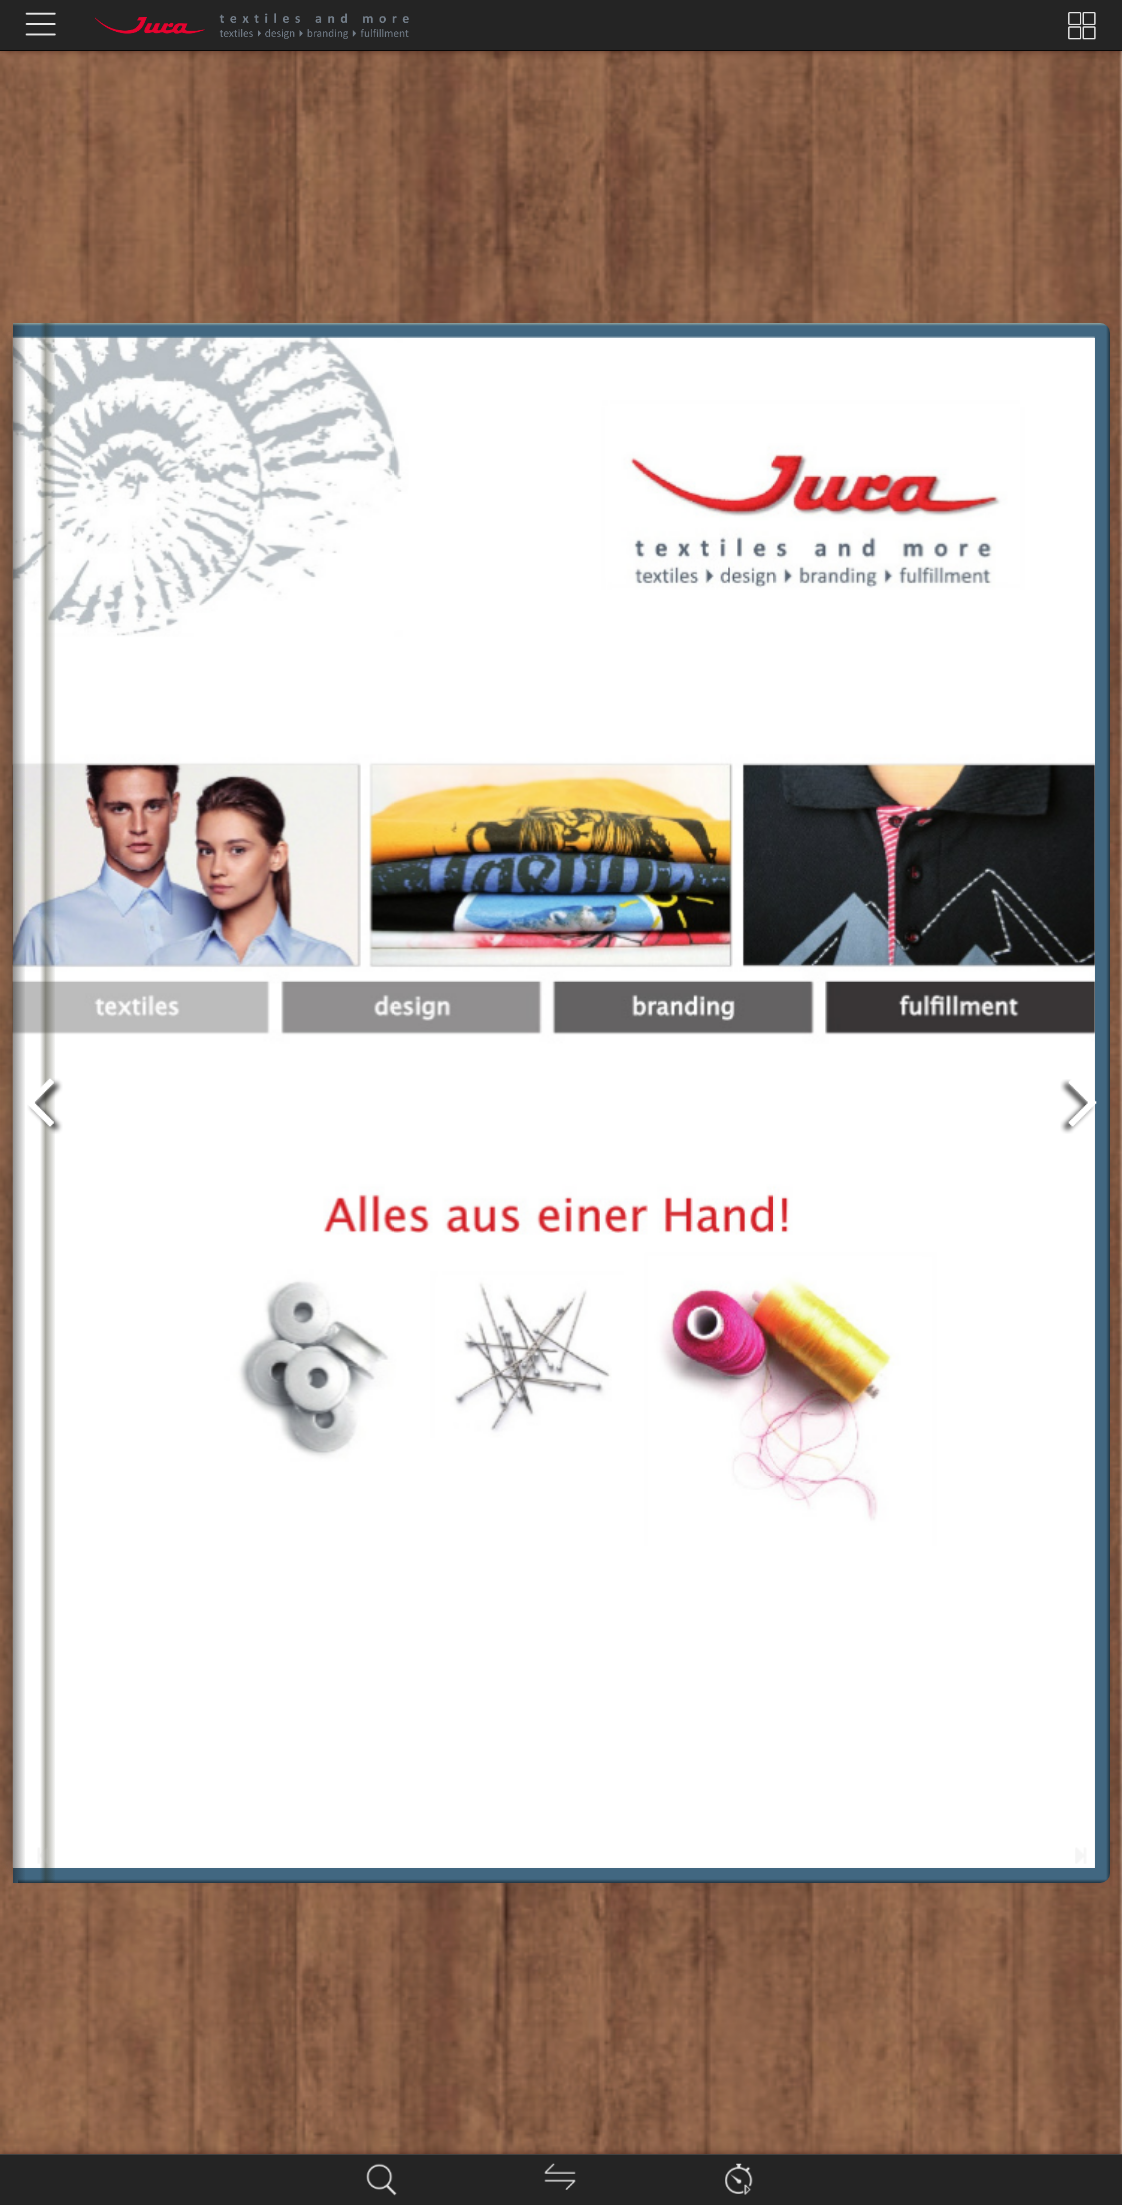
<!DOCTYPE html>
<meta charset="utf-8">
<style>body { margin: 0 } canvas { display: block }</style>
<canvas id="canvas" width="1122" height="2205"></canvas>
<script type="module">
  const canvas = document.getElementById("canvas");
  const g = canvas.getContext("2d");
  g.miterLimit = 4;
  g.fontKerning = "normal";
  function fillBox(x, y, w, h, color) {
    g.fillStyle = color;
    g.fillRect(x, y, w, h);
  }
  async function drawPicture(src, x, y, w, h) {
    const img = new Image();
    img.src = src;
    await img.decode();
    g.drawImage(img, x, y, w, h);
  }
  let gradient;

  fillBox(0, 0, 1122, 2205, "#FFFFFF");
  await drawPicture("pic4.png", 0, 51, 1122, 2103);
  g.fillStyle = "rgba(40, 0, 0, 0.5)";
  g.filter = "blur(3px)";
  g.beginPath();
  g.rect(0, 0, 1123, 51);
  g.fill();
  g.filter = "none";
  fillBox(0, 0, 1122, 50, "#242424");
  fillBox(0, 50, 1122, 1, "#060606");
  await drawPicture("pic1.png", 25, 12, 31, 24);
  await drawPicture("pic2.png", 95, 13, 314, 26);
  await drawPicture("pic3.png", 1068, 12, 28, 28);
  g.fillStyle = "rgba(40, 40, 40, 0.7)";
  g.filter = "blur(9.5px)";
  g.beginPath();
  g.rect(13, 338, 1082, 1530);
  g.fill();
  g.filter = "none";
  await drawPicture("pic5.png", 12, 337, 1, 1531);
  g.fillStyle = "#416781";
  g.beginPath();
  g.roundRect(13, 323, 1097, 1560, [0, 10, 10, 0]);
  g.fill();
  fillBox(13, 338, 1082, 1530, "#E8E8E8");
  await drawPicture("pic6.png", 13, 336, 1082, 1532);
  gradient = g.createLinearGradient(12, 1103, 26, 1103);
  gradient.addColorStop(0, "rgba(20, 20, 20, 0.5)");
  gradient.addColorStop(1, "rgba(20, 20, 20, 0)");
  g.fillStyle = gradient;
  g.fillRect(13, 323, 12, 1560);
  g.save();
  g.beginPath();
  g.roundRect(13, 323, 1097, 1560, [0, 10, 10, 0]);
  g.clip();
  gradient = g.createLinearGradient(561, 322, 561, 326);
  gradient.addColorStop(0, "rgba(240, 240, 200, 0.6)");
  gradient.addColorStop(1, "rgba(240, 240, 200, 0)");
  g.fillStyle = gradient;
  g.fillRect(13, 323, 1097, 3);
  gradient = g.createLinearGradient(564, 1883, 564, 1879);
  gradient.addColorStop(0, "rgba(0, 0, 0, 0.5)");
  gradient.addColorStop(1, "rgba(0, 0, 0, 0)");
  g.fillStyle = gradient;
  g.fillRect(18, 1879, 1092, 4);
  g.restore();
  gradient = g.createLinearGradient(40, 1103, 56, 1103);
  gradient.addColorStop(0, "rgba(40, 40, 20, 0)");
  gradient.addColorStop(0.35, "rgba(40, 40, 20, 0.4)");
  gradient.addColorStop(1, "rgba(40, 40, 20, 0)");
  g.fillStyle = gradient;
  g.fillRect(40, 323, 15, 1560);
  g.save();
  g.beginPath();
  g.roundRect(13, 323, 1097, 1560, [0, 10, 10, 0]);
  g.clip();
  gradient = g.createLinearGradient(1110, 1103, 1106, 1103);
  gradient.addColorStop(0, "rgba(0, 0, 0, 0.5)");
  gradient.addColorStop(1, "rgba(0, 0, 0, 0)");
  g.fillStyle = gradient;
  g.fillRect(1106, 324, 4, 1557);
  g.restore();
  await drawPicture("pic7.png", 27, 1078, 36, 56);
  await drawPicture("pic8.png", 1060, 1079, 37, 55);
  await drawPicture("pic9.png", 37, 1847, 11, 17);
  await drawPicture("pic10.png", 1075, 1847, 12, 17);
  g.fillStyle = "rgba(40, 0, 0, 0.5)";
  g.filter = "blur(3px)";
  g.beginPath();
  g.rect(0, 2154, 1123, 51);
  g.fill();
  g.filter = "none";
  fillBox(0, 2155, 1122, 50, "#242424");
  fillBox(0, 2154, 1122, 1, "#424242");
  await drawPicture("pic11.png", 366, 2163, 31, 33);
  await drawPicture("pic12.png", 544, 2163, 32, 27);
  await drawPicture("pic13.png", 725, 2163, 28, 32);
</script>
